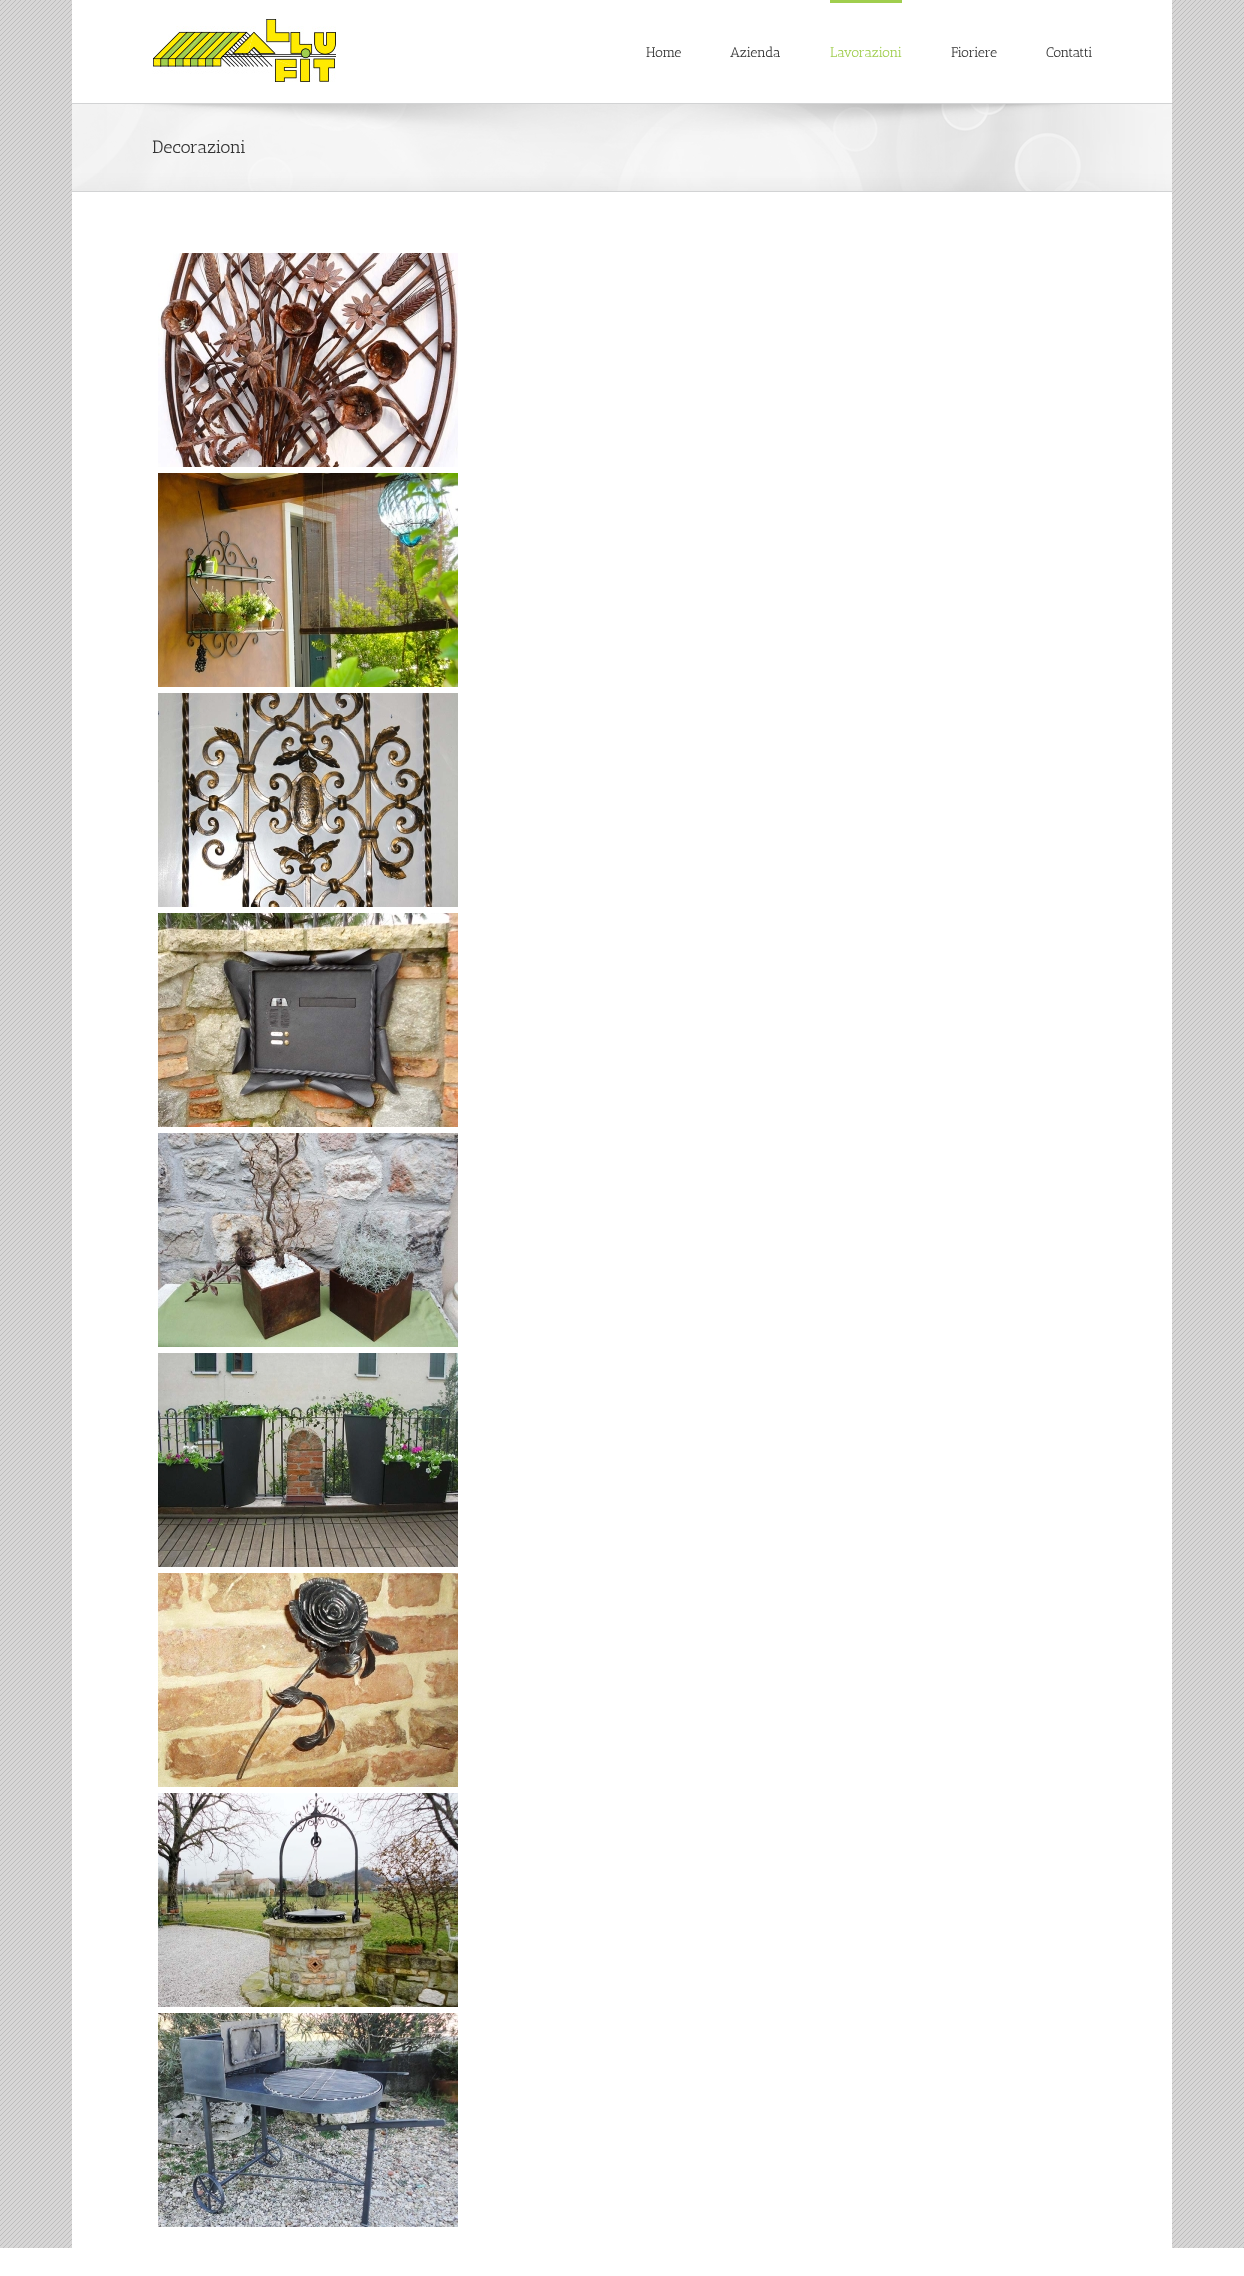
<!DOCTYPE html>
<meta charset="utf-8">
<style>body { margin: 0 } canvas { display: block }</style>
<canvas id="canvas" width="1244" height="2276"></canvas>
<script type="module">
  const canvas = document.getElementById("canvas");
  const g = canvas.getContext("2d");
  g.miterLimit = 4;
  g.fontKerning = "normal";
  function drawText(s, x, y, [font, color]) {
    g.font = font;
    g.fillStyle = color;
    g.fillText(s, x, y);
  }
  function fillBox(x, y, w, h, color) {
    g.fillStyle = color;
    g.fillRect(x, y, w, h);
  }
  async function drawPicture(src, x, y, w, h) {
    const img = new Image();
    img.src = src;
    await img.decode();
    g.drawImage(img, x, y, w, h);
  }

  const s1 = ["14px Antic Slab", "#333333"];
  const s2 = ["14px Antic Slab", "#A0CE4E"];
  const s3 = ["18px Antic Slab", "#333333"];

  fillBox(0, 0, 1244, 2276, "#FFFFFF");
  await drawPicture("pic1.png", 0, 0, 1244, 2248);
  fillBox(72, 0, 1100, 2248, "#FFFFFF");
  await drawPicture("pic2.png", 152, 18, 184, 64);
  drawText("Home", 646, 57, s1);
  drawText("Azienda", 730, 57, s1);
  fillBox(830, 0, 72, 3, "#A0CE4E");
  drawText("Lavorazioni", 830, 57, s2);
  drawText("Fioriere", 951, 57, s1);
  drawText("Contatti", 1046, 57, s1);
  fillBox(72, 104, 1100, 87, "#F6F6F6");
  await drawPicture("pic3.png", 72, 104, 1100, 87);
  fillBox(72, 103, 1100, 1, "#D2D3D4");
  fillBox(72, 191, 1100, 1, "#D2D3D4");
  drawText("Decorazioni", 152, 153, s3);
  await drawPicture("pic4.png", 158, 253, 300, 214);
  await drawPicture("pic5.png", 158, 473, 300, 214);
  await drawPicture("pic6.png", 158, 693, 300, 214);
  await drawPicture("pic7.png", 158, 913, 300, 214);
  await drawPicture("pic8.png", 158, 1133, 300, 214);
  await drawPicture("pic9.png", 158, 1353, 300, 214);
  await drawPicture("pic10.png", 158, 1573, 300, 214);
  await drawPicture("pic11.png", 158, 1793, 300, 214);
  await drawPicture("pic12.png", 158, 2013, 300, 214);
</script>
